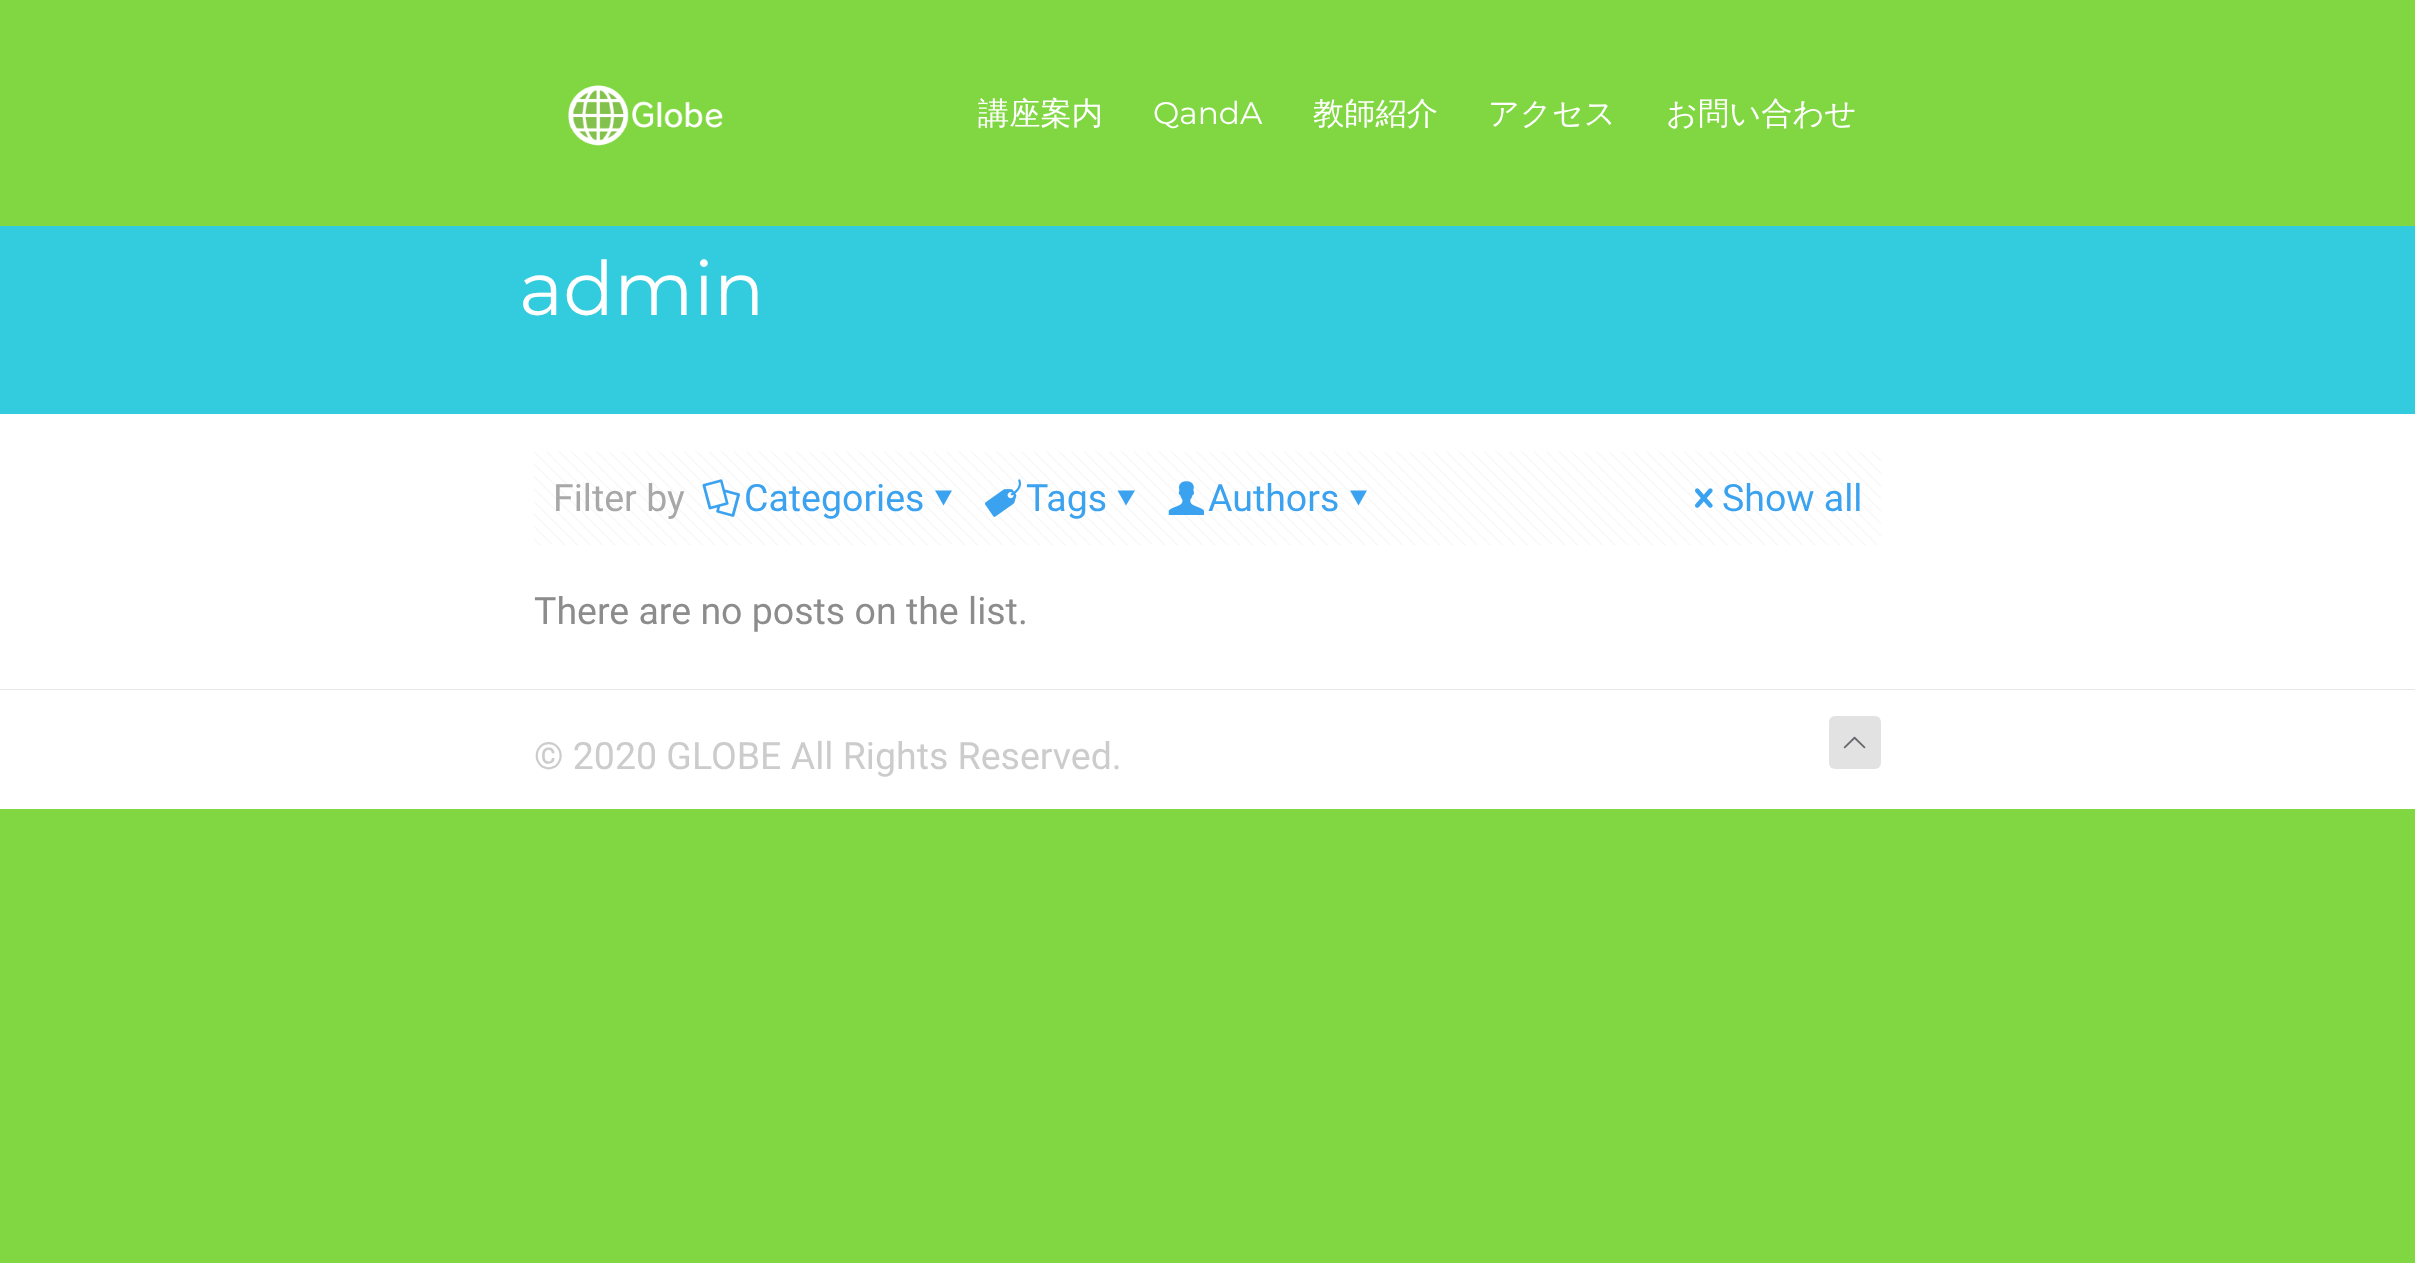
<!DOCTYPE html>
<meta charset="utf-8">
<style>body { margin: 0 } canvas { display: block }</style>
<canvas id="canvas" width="2415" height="1263"></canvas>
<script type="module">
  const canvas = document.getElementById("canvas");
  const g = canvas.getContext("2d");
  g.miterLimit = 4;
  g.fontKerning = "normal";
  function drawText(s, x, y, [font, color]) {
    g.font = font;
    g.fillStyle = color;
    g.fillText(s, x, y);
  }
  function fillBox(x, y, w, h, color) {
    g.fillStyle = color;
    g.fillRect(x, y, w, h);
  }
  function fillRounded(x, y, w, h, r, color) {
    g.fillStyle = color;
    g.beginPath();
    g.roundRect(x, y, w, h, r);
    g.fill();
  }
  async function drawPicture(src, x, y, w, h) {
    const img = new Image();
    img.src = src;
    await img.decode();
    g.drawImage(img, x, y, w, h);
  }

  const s1 = ["500 31.25px WenQuanYi Zen Hei", "#FFFFFF"];
  const s2 = ["31.25px Montserrat", "#FFFFFF"];
  const s3 = ["75px Montserrat", "#FFFFFF"];
  const s4 = ["37.5px Roboto", "#A8A8A8"];
  const s5 = ["37.5px Roboto", "#3BA2F0"];
  const s6 = ["37.5px Roboto", "#8C8C8C"];
  const s7 = ["37.5px Roboto", "#CCCCCC"];

  fillBox(0, 0, 2415, 1263, "#81D742");
  fillBox(0, 414, 2415, 395, "#FFFFFF");
  await drawPicture("pic1.png", 568, 85, 155, 61);
  drawText("講座案内", 978, 124, s1);
  drawText("QandA", 1153, 124, s2);
  drawText("教師紹介", 1313, 124, s1);
  drawText("アクセス", 1488, 124, s1);
  drawText("お問い合わせ", 1666, 124, s1);
  fillBox(0, 226, 2415, 188, "#33CCDE");
  drawText("admin", 519, 315, s3);
  await drawPicture("pic2.png", 534, 451, 1347, 94);
  drawText("Filter by", 553, 511, s4);
  await drawPicture("pic3.png", 702, 479, 38, 38);
  drawText("Categories", 744, 511, s5);
  g.beginPath();
  g.moveTo(952, 490.5);
  g.lineTo(943.5, 505.5);
  g.lineTo(935, 490.5);
  g.closePath();
  g.fill();
  await drawPicture("pic4.png", 985, 479, 36, 38);
  drawText("Tags", 1026, 511, s5);
  g.beginPath();
  g.moveTo(1135, 490.5);
  g.lineTo(1126, 505.5);
  g.lineTo(1117.5, 490.5);
  g.closePath();
  g.fill();
  await drawPicture("pic5.png", 1168, 481, 36, 34);
  drawText("Authors", 1208, 511, s5);
  g.beginPath();
  g.moveTo(1367, 490.5);
  g.lineTo(1358.5, 505.5);
  g.lineTo(1350, 490.5);
  g.closePath();
  g.fill();
  await drawPicture("pic6.png", 1695, 488, 18, 20);
  drawText("Show all", 1722, 511, s5);
  drawText("There are no posts on the list.", 534, 624, s6);
  fillBox(0, 689, 2415, 1, "#E6E6E6");
  drawText("© 2020 GLOBE All Rights Reserved.", 534, 769, s7);
  fillRounded(1829, 716, 52, 53, 6, "#E2E2E2");
  await drawPicture("pic7.png", 1843, 736, 23, 13);
</script>
